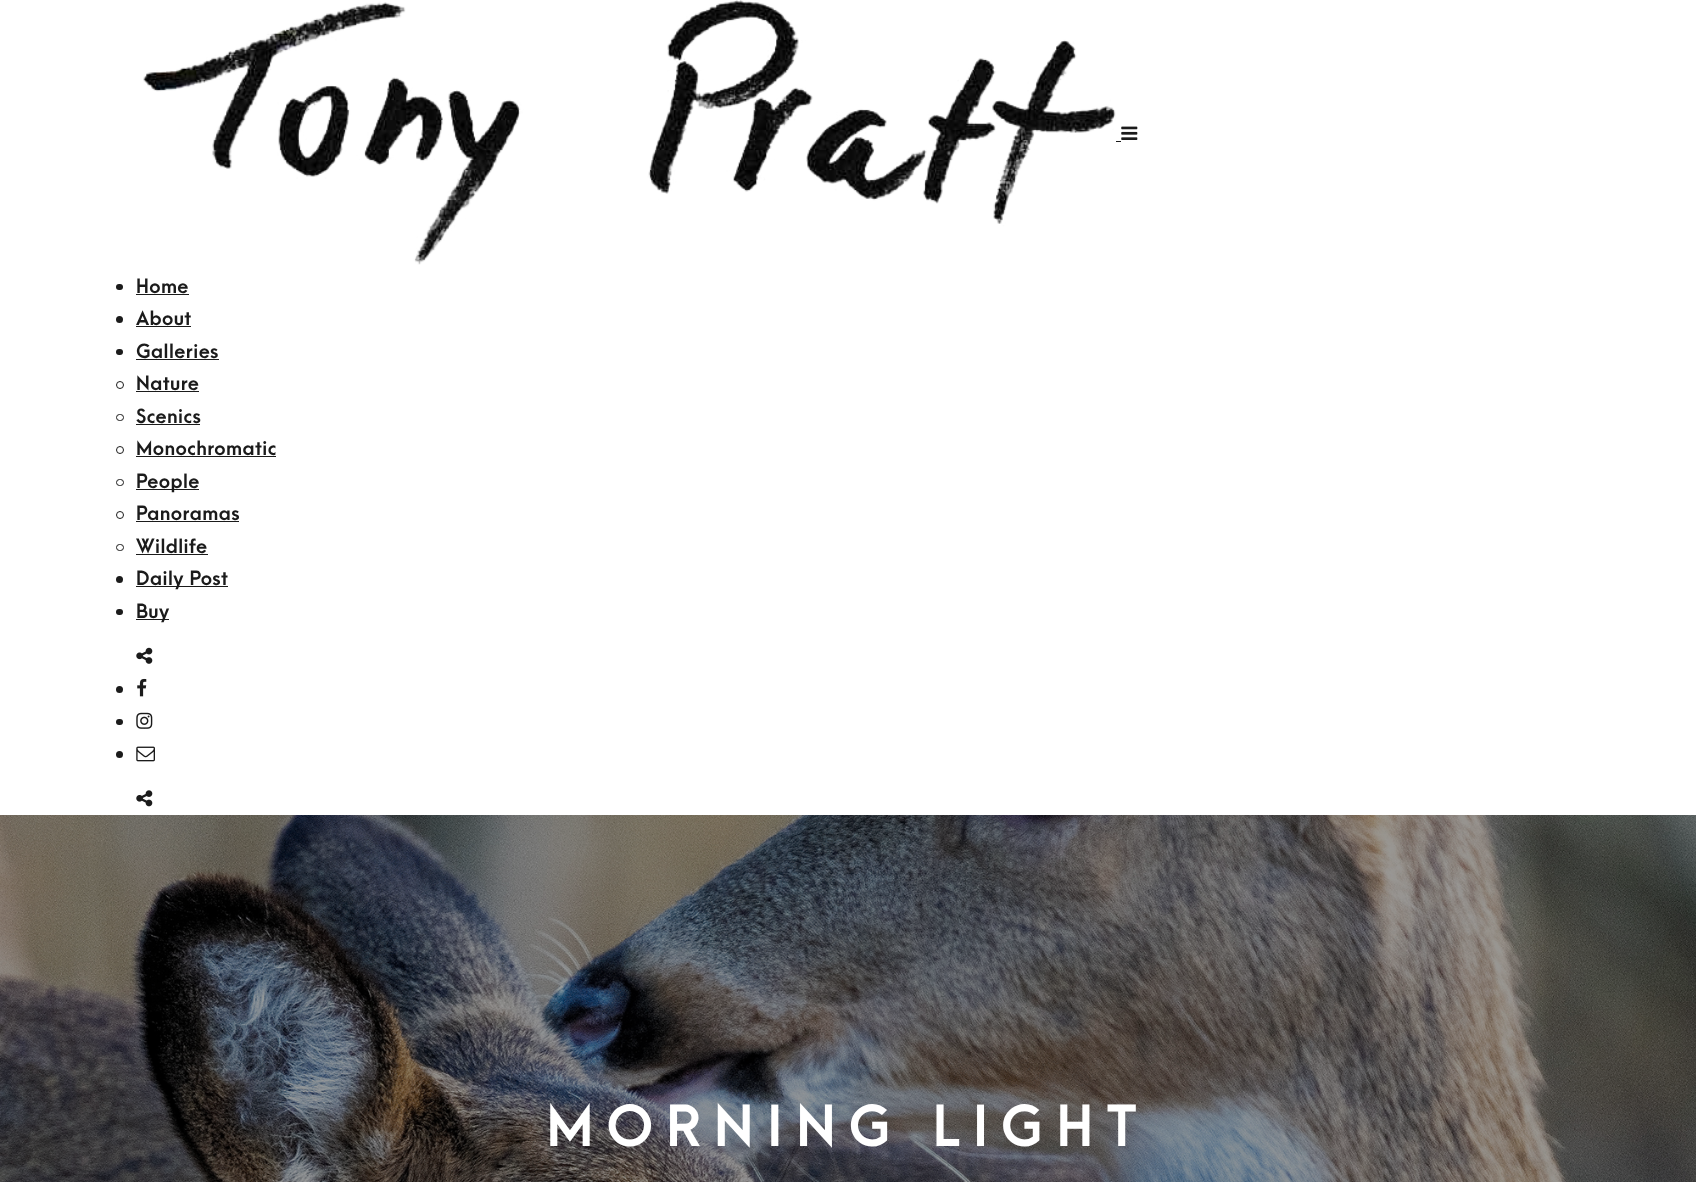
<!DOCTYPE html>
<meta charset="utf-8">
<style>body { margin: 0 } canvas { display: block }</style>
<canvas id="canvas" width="1696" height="1182"></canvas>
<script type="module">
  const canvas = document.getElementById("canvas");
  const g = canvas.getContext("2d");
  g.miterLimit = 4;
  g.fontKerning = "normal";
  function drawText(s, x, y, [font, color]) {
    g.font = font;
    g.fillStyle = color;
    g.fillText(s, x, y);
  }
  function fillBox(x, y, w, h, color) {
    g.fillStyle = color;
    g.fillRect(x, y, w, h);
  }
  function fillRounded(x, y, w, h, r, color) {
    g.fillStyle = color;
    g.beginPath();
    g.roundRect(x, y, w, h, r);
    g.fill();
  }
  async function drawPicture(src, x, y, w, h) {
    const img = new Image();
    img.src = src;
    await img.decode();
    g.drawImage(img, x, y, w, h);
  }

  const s1 = ["bold 18.75px 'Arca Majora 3'", "#1B1B1B"];
  const s2 = ["900 53.75px 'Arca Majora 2'", "#FFFFFF"];

  fillBox(0, 0, 1696, 1182, "#FFFFFF");
  await drawPicture("pic1.png", 143, 0, 973, 265);
  await drawPicture("pic2.png", 1121, 126, 17, 14);
  fillBox(1116, 141, 5, 1, "#1B1B1B");
  fillRounded(116, 284, 7, 6, 3, "#1B1B1B");
  g.letterSpacing = "0.4px";
  drawText("Home", 136, 293, s1);
  fillBox(136, 294, 53, 1, "#1B1B1B");
  g.beginPath();
  g.arc(119.5, 319.5, 3.5, 0, Math.PI * 2);
  g.fill();
  drawText("About", 136, 325, s1);
  fillBox(136, 326, 55, 1, "#1B1B1B");
  fillRounded(116, 349, 7, 6, 3, "#1B1B1B");
  drawText("Galleries", 136, 358, s1);
  fillBox(136, 359, 83, 1, "#1B1B1B");
  g.beginPath();
  g.arc(120, 385, 3.5, 0, Math.PI * 2);
  g.strokeStyle = "#1B1B1B";
  g.stroke();
  drawText("Nature", 136, 390, s1);
  fillBox(136, 391, 63, 1, "#1B1B1B");
  g.beginPath();
  g.roundRect(116.5, 414.5, 7, 6, 3);
  g.stroke();
  drawText("Scenics", 136, 423, s1);
  fillBox(136, 424, 64, 1, "#1B1B1B");
  g.beginPath();
  g.arc(120, 450, 3.5, 0, Math.PI * 2);
  g.stroke();
  drawText("Monochromatic", 136, 455, s1);
  fillBox(136, 456, 140, 1, "#1B1B1B");
  g.beginPath();
  g.roundRect(116.5, 479.5, 7, 6, 3);
  g.stroke();
  fillBox(136, 489, 63, 1, "#1B1B1B");
  drawText("People", 136, 488, s1);
  g.beginPath();
  g.arc(120, 515, 3.5, 0, Math.PI * 2);
  g.stroke();
  drawText("Panoramas", 136, 520, s1);
  fillBox(136, 521, 103, 1, "#1B1B1B");
  g.beginPath();
  g.roundRect(116.5, 544.5, 7, 6, 3);
  g.stroke();
  drawText("Wildlife", 136, 553, s1);
  fillBox(136, 554, 72, 1, "#1B1B1B");
  g.beginPath();
  g.arc(119.5, 579.5, 3.5, 0, Math.PI * 2);
  g.fill();
  fillBox(136, 586, 92, 1, "#1B1B1B");
  drawText("Daily Post", 136, 585, s1);
  fillRounded(116, 609, 7, 6, 3, "#1B1B1B");
  fillBox(136, 619, 33, 1, "#1B1B1B");
  drawText("Buy", 136, 618, s1);
  await drawPicture("pic3.png", 136, 647, 17, 17);
  g.beginPath();
  g.arc(119.5, 689.5, 3.5, 0, Math.PI * 2);
  g.fill();
  await drawPicture("pic4.png", 137, 678, 10, 19);
  fillRounded(116, 719, 7, 6, 3, "#1B1B1B");
  await drawPicture("pic5.png", 136, 712, 17, 17);
  g.beginPath();
  g.arc(119.5, 754.5, 3.5, 0, Math.PI * 2);
  g.fill();
  await drawPicture("pic6.png", 136, 746, 19, 16);
  await drawPicture("pic7.png", 136, 790, 17, 17);
  await drawPicture("pic8.png", 0, 815, 1696, 367);
  g.letterSpacing = "13.1px";
  drawText("Morning Light", 546, 1146, s2);
</script>
